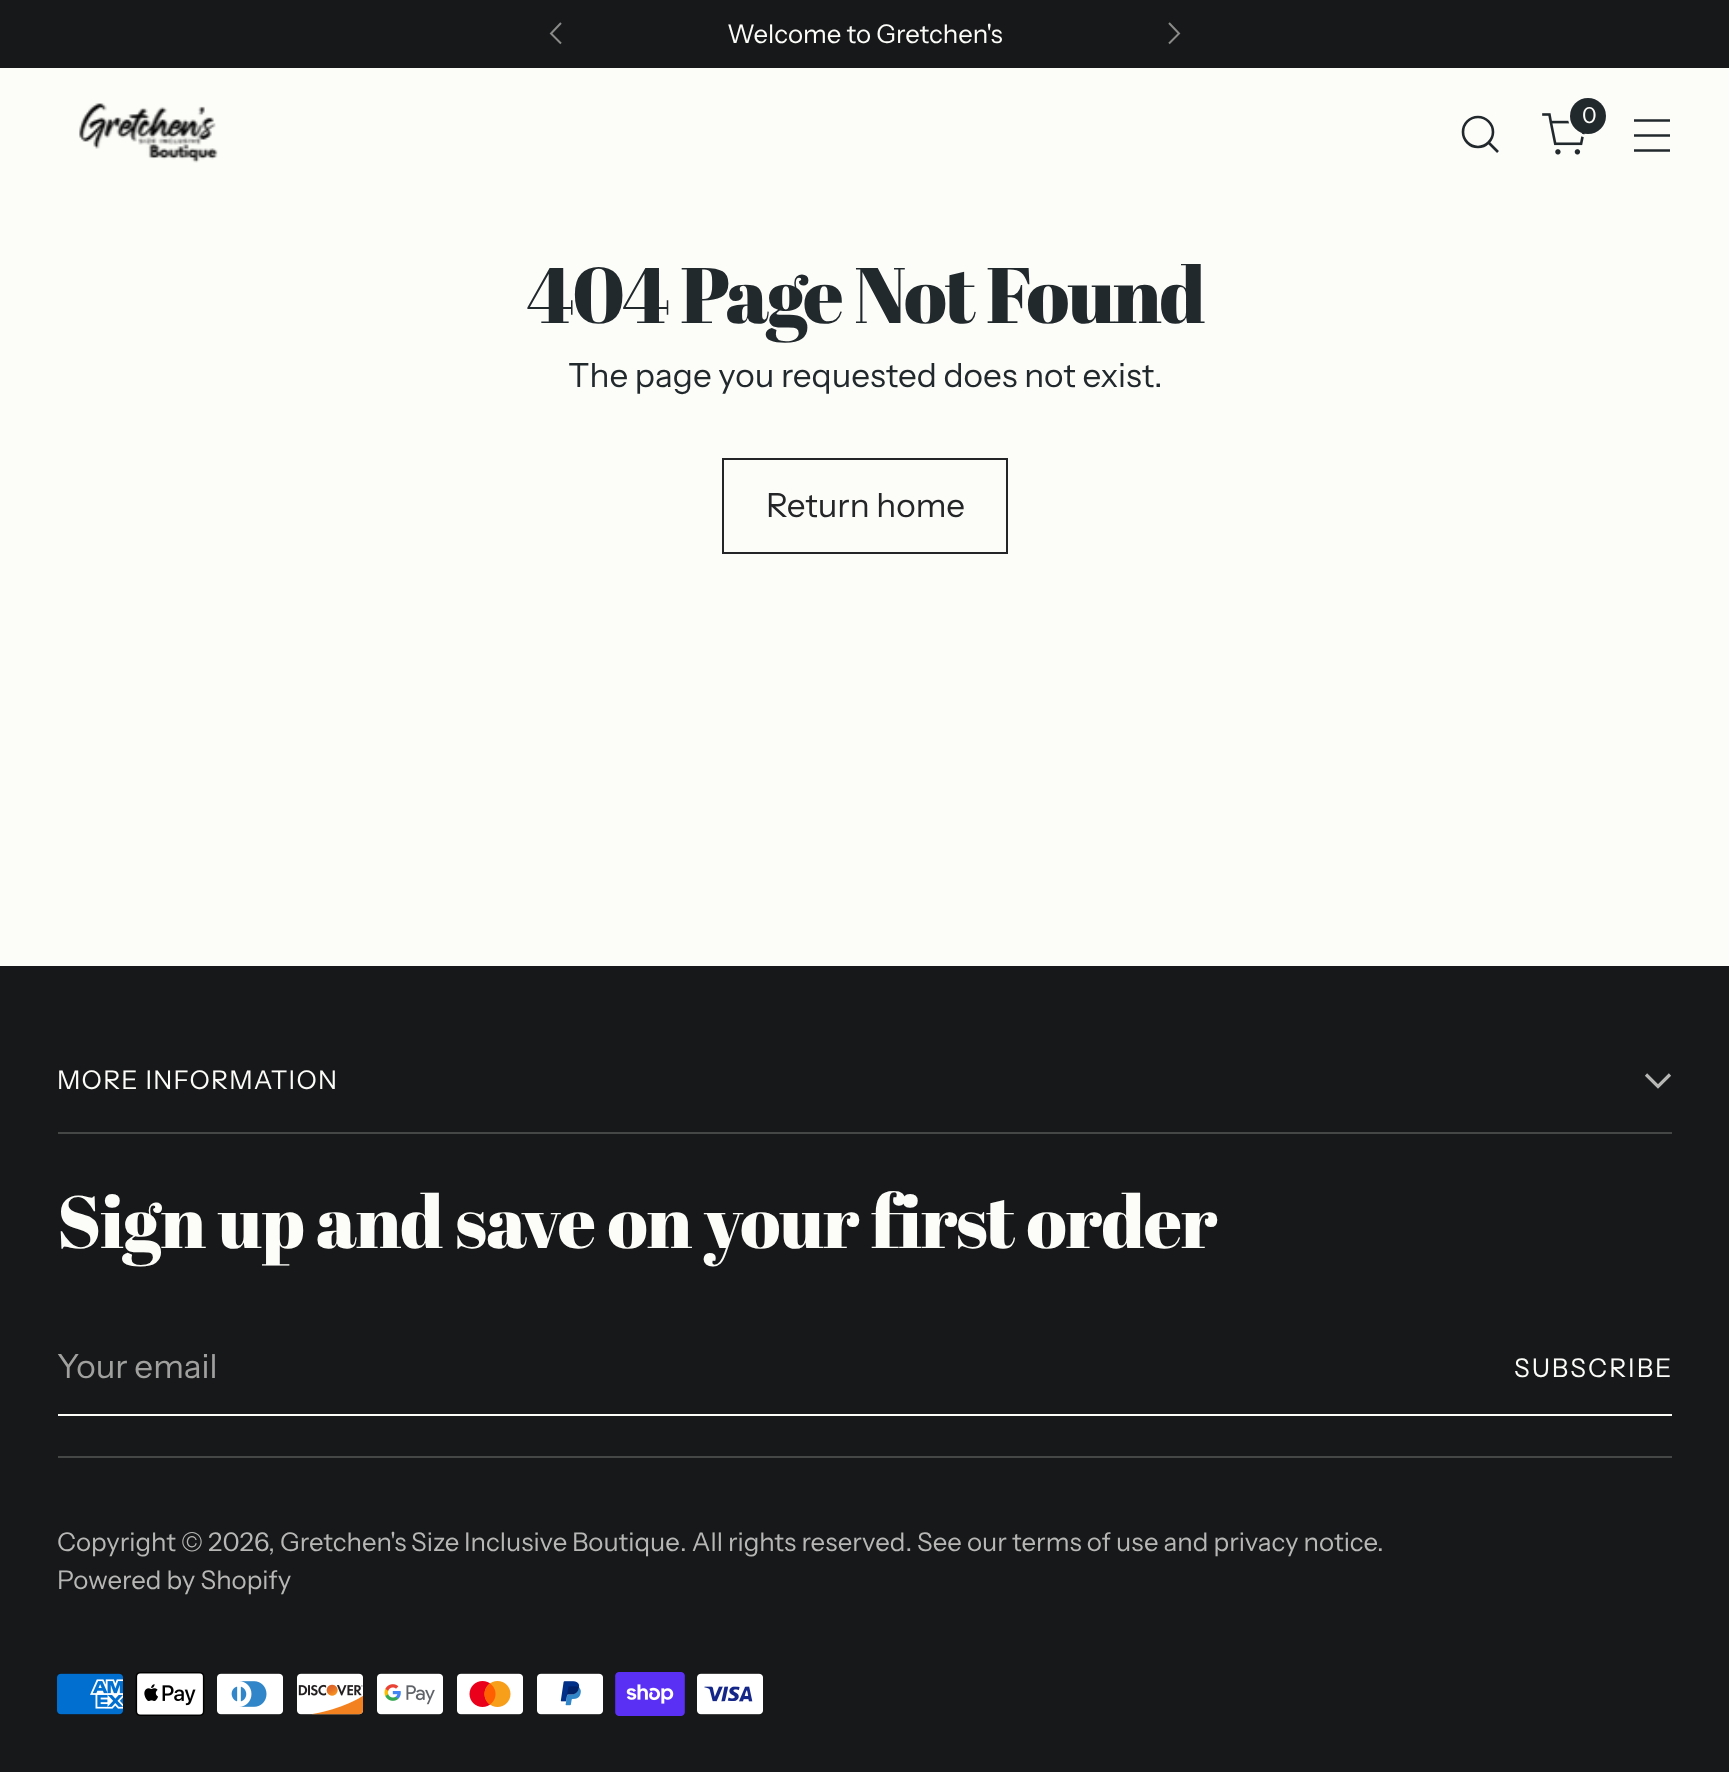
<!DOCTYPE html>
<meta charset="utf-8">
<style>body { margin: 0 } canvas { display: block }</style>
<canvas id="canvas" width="1729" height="1772"></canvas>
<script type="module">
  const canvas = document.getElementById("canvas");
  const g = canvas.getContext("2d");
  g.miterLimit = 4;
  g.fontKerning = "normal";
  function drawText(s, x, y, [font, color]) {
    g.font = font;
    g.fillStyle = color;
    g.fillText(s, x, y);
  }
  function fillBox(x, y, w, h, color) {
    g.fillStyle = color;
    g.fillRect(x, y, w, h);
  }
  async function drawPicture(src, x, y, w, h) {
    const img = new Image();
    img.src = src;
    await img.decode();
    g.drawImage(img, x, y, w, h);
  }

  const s1 = ["25.8px Instrument Sans", "#FCFCF9"];
  const s2 = ["22px Instrument Sans", "#FCFCF9"];
  const s3 = ["78.75px Abril Fatface", "#22292D"];
  const s4 = ["33.25px Instrument Sans", "#22292D"];
  const s5 = ["33.25px Instrument Sans", "#242526"];
  const s6 = ["73.8px Abril Fatface", "#FCFCF9"];
  const s7 = ["33.25px Instrument Sans", "#A0A19F"];
  const s8 = ["25.8px Instrument Sans", "#B7B8B6"];

  fillBox(0, 0, 1729, 1772, "#FCFCF9");
  fillBox(0, 0, 1729, 68, "#171819");
  g.beginPath();
  g.moveTo(561, 23);
  g.lineTo(551, 33.5);
  g.lineTo(561, 43.5);
  g.strokeStyle = "#8A8A89";
  g.lineWidth = 2;
  g.stroke();
  g.beginPath();
  g.moveTo(1169, 43.5);
  g.lineTo(1179, 33.5);
  g.lineTo(1169, 23);
  g.stroke();
  drawText("Welcome to Gretchen's", 727, 43, s1);
  await drawPicture("pic1.png", 79, 103, 139, 60);
  g.beginPath();
  g.moveTo(1478, 147);
  g.bezierCurveTo(1486, 147, 1493, 140, 1493, 132);
  g.bezierCurveTo(1493, 123.5, 1486, 117, 1478, 117);
  g.bezierCurveTo(1469.5, 117, 1463, 123.5, 1463, 132);
  g.bezierCurveTo(1463, 140, 1469.5, 147, 1478, 147);
  g.closePath();
  g.strokeStyle = "#22292D";
  g.lineWidth = 2.6;
  g.lineCap = "round";
  g.stroke();
  g.beginPath();
  g.moveTo(1488.5, 142.5);
  g.lineTo(1498, 152);
  g.lineCap = "butt";
  g.stroke();
  await drawPicture("pic2.png", 1542, 113, 43, 42);
  g.beginPath();
  g.arc(1589, 117, 19.5, 0, Math.PI * 2);
  g.strokeStyle = "#FCFCF9";
  g.lineWidth = 3;
  g.stroke();
  g.fillStyle = "#22292D";
  g.beginPath();
  g.arc(1588, 116, 18, 0, Math.PI * 2);
  g.fill();
  drawText("0", 1582, 123, s2);
  g.beginPath();
  g.moveTo(1634, 135.5);
  g.lineTo(1670, 135.5);
  g.moveTo(1634, 120.5);
  g.lineTo(1670, 120.5);
  g.moveTo(1634, 150.5);
  g.lineTo(1670, 150.5);
  g.strokeStyle = "#22292D";
  g.lineWidth = 2.6;
  g.stroke();
  g.letterSpacing = "-2px";
  drawText("404 Page Not Found", 527, 323, s3);
  g.letterSpacing = "0px";
  drawText("The page you requested does not exist.", 568, 387, s4);
  g.strokeStyle = "#242526";
  g.lineWidth = 2;
  g.strokeRect(723, 459, 284, 94);
  drawText("Return home", 766, 517, s5);
  fillBox(0, 966, 1729, 806, "#171819");
  fillBox(58, 1132, 1614, 2, "#454646");
  g.letterSpacing = "1.25px";
  drawText("MORE INFORMATION", 57, 1089, s1);
  g.beginPath();
  g.moveTo(1646, 1074.5);
  g.lineTo(1658, 1086.5);
  g.lineTo(1670, 1074.5);
  g.strokeStyle = "#B7B8B6";
  g.lineWidth = 3.2;
  g.stroke();
  fillBox(58, 1456, 1614, 2, "#454646");
  g.letterSpacing = "-0.9px";
  drawText("Sign up and save on your first order", 57, 1248, s6);
  fillBox(58, 1414, 1614, 2, "#FCFCF9");
  g.letterSpacing = "0px";
  drawText("Your email", 57, 1378, s7);
  g.letterSpacing = "2px";
  drawText("SUBSCRIBE", 1514, 1377, s1);
  g.letterSpacing = "0px";
  drawText("Copyright © 2026,", 57, 1551, s8);
  g.wordSpacing = "-0.5px";
  drawText("Gretchen's Size Inclusive Boutique", 280, 1551, s8);
  g.wordSpacing = "0px";
  drawText(". All rights reserved. See our terms of use and privacy notice.", 680, 1551, s8);
  drawText("Powered by Shopify", 57, 1589, s8);
  await drawPicture("pic3.png", 57, 1673, 66, 42);
  await drawPicture("pic4.png", 135, 1672, 70, 44);
  await drawPicture("pic5.png", 217, 1673, 66, 42);
  await drawPicture("pic6.png", 297, 1673, 67, 42);
  await drawPicture("pic7.png", 377, 1673, 66, 42);
  await drawPicture("pic8.png", 457, 1673, 66, 42);
  await drawPicture("pic9.png", 537, 1673, 66, 42);
  await drawPicture("pic10.png", 615, 1672, 70, 44);
  await drawPicture("pic11.png", 697, 1673, 66, 42);
</script>
